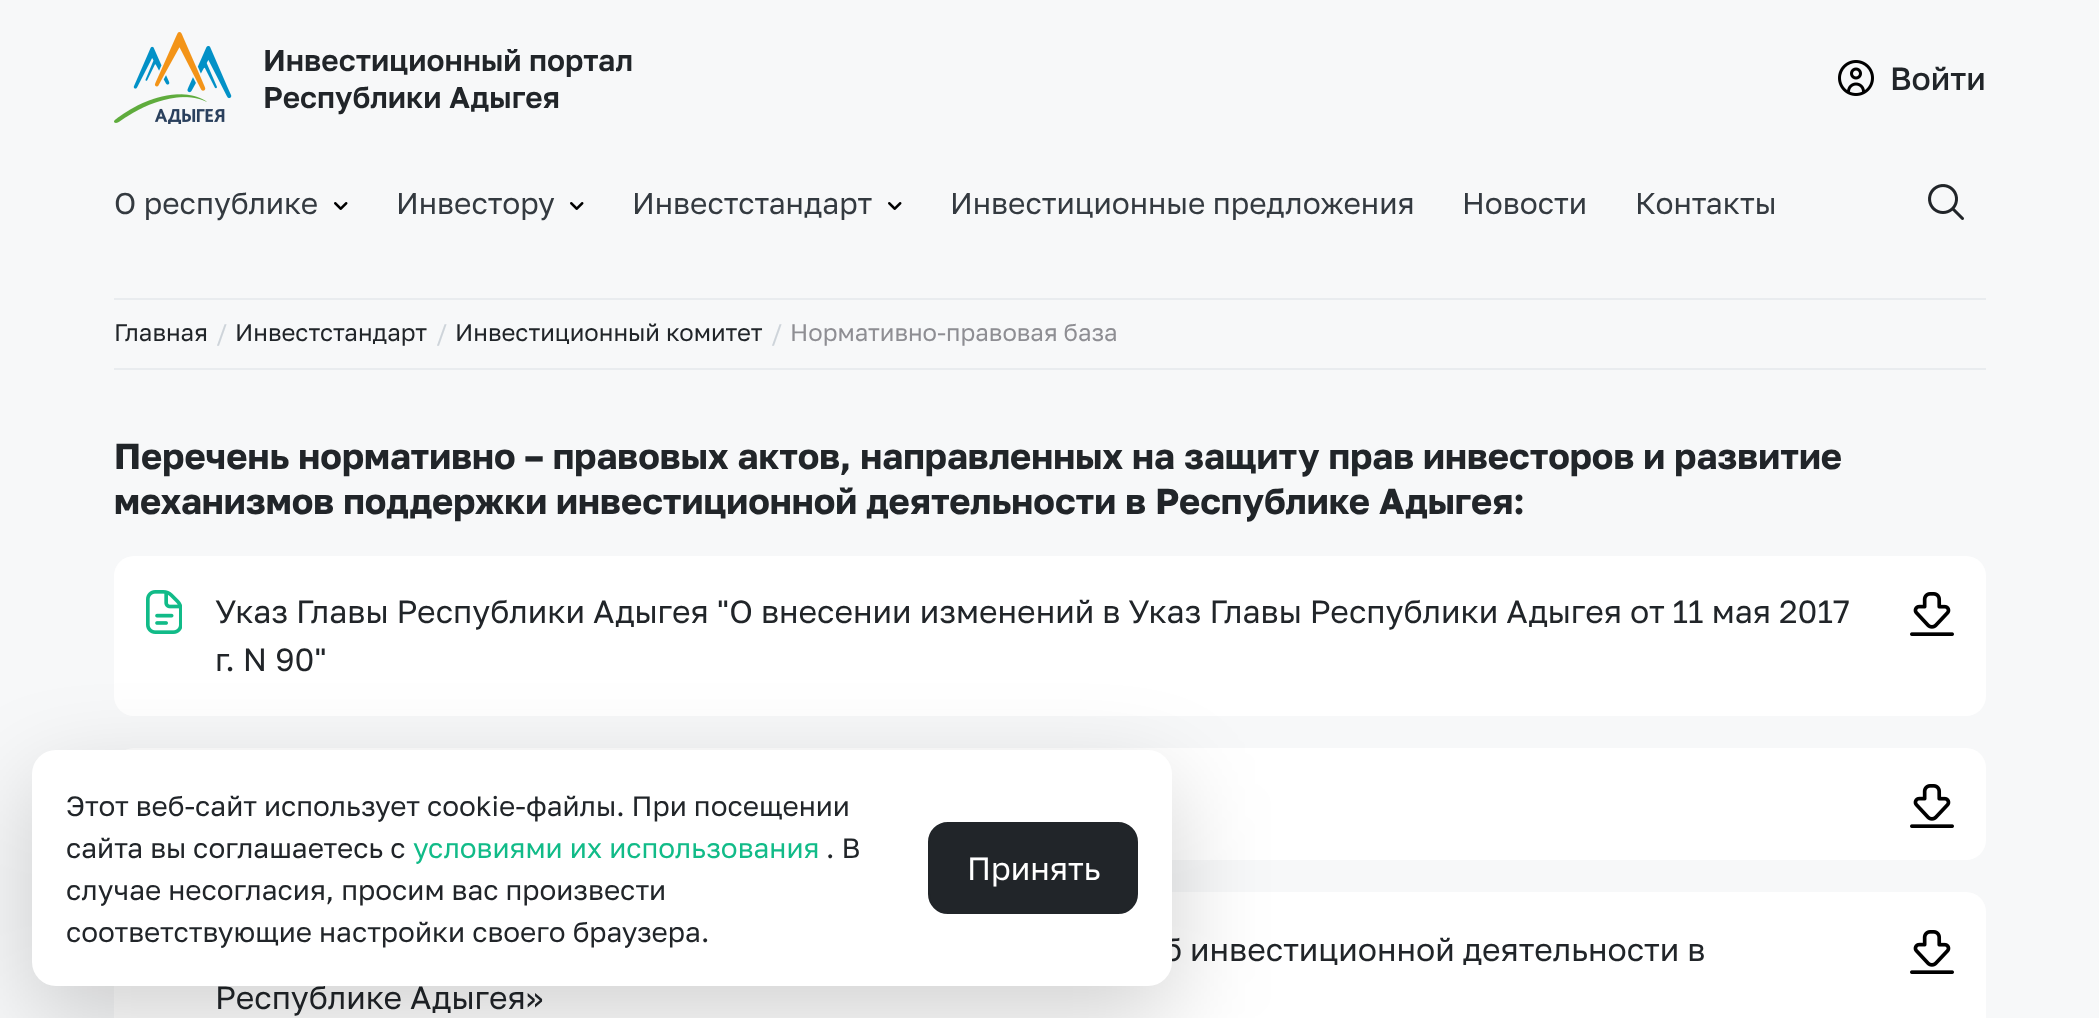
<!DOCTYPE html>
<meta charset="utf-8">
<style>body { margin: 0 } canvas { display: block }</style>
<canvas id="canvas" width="2099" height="1018"></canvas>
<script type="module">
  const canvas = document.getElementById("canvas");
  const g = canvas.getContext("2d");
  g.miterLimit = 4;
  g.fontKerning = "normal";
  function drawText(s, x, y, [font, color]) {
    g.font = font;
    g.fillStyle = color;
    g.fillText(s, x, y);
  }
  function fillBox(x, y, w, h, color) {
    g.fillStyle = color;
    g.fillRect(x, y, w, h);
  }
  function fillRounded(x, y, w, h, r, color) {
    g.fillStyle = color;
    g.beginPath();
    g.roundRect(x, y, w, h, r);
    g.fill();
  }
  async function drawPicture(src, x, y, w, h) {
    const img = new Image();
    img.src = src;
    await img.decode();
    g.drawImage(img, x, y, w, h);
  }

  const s1 = ["600 30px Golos", "#212529"];
  const s2 = ["500 32px Golos", "#212529"];
  const s3 = ["30px Golos Text", "#343A40"];
  const s4 = ["24px Golos Text", "#212529"];
  const s5 = ["24px Golos Text", "#CED4DA"];
  const s6 = ["24px Golos Text", "#8E8E93"];
  const s7 = ["bold 36px Golos", "#212529"];
  const s8 = ["32px Golos Text", "#212529"];
  const s9 = ["28px Golos Text", "#212529"];
  const s10 = ["28px Golos Text", "#11BB88"];
  const s11 = ["32px Golos Text", "#FFFFFF"];

  fillBox(0, 0, 2099, 1018, "#F7F8F9");
  await drawPicture("pic1.png", 114, 32, 118, 92);
  drawText("Инвестиционный портал", 263, 71, s1);
  drawText("Республики Адыгея", 263, 108, s1);
  await drawPicture("pic2.png", 1838, 60, 36, 36);
  drawText("Войти", 1890, 90, s2);
  drawText("О республике", 114, 214, s3);
  await drawPicture("pic3.png", 334, 202, 14, 8);
  drawText("Инвестору", 396, 214, s3);
  await drawPicture("pic3.png", 570, 202, 14, 8);
  drawText("Инвестстандарт", 632, 214, s3);
  await drawPicture("pic3.png", 888, 202, 14, 8);
  drawText("Инвестиционные предложения", 950, 214, s3);
  drawText("Новости", 1462, 214, s3);
  drawText("Контакты", 1635, 214, s3);
  await drawPicture("pic4.png", 1928, 184, 36, 36);
  fillBox(114, 298, 1872, 2, "#E9ECEF");
  fillBox(114, 368, 1872, 2, "#E9ECEF");
  drawText("Главная", 114, 341, s4);
  drawText("/", 216, 341, s5);
  drawText("Инвестстандарт", 235, 341, s4);
  drawText("/", 436, 341, s5);
  drawText("Инвестиционный комитет", 455, 341, s4);
  drawText("/", 771, 341, s5);
  drawText("Нормативно-правовая база", 790, 341, s6);
  drawText("Перечень нормативно – правовых актов, направленных на защиту прав инвесторов и развитие", 114, 469, s7);
  drawText("механизмов поддержки инвестиционной деятельности в Республике Адыгея:", 114, 514, s7);
  fillRounded(114, 556, 1872, 160, 20, "#FFFFFF");
  await drawPicture("pic5.png", 146, 590, 36, 44);
  drawText("Указ Главы Республики Адыгея \"О внесении изменений в Указ Главы Республики Адыгея от 11 мая 2017", 215, 623, s8);
  drawText("г. N 90\"", 215, 671, s8);
  await drawPicture("pic6.png", 1910, 592, 44, 44);
  fillRounded(114, 748, 1872, 112, 20, "#FFFFFF");
  await drawPicture("pic6.png", 1910, 784, 44, 44);
  fillRounded(114, 892, 1872, 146, 20, "#FFFFFF");
  drawText("б инвестиционной деятельности в", 1163, 961, s8);
  drawText("Республике Адыгея»", 215, 1009, s8);
  await drawPicture("pic6.png", 1910, 930, 44, 44);
  g.fillStyle = "rgba(0, 0, 0, 0.18)";
  g.filter = "blur(48px)";
  g.beginPath();
  g.roundRect(32, 782, 1140, 236, 24);
  g.fill();
  g.filter = "none";
  fillRounded(32, 750, 1140, 236, 24, "#FFFFFF");
  drawText("Этот веб-сайт использует cookie-файлы. При посещении", 66, 816, s9);
  drawText("сайта вы соглашаетесь с", 66, 858, s9);
  drawText("условиями их использования", 413, 858, s10);
  drawText(". В", 826, 858, s9);
  drawText("случае несогласия, просим вас произвести", 66, 900, s9);
  drawText("соответствующие настройки своего браузера.", 66, 942, s9);
  g.beginPath();
  g.roundRect(929, 823, 208, 90, 19);
  g.fill();
  g.strokeStyle = "#212529";
  g.lineWidth = 2;
  g.stroke();
  drawText("Принять", 967, 880, s11);
</script>
